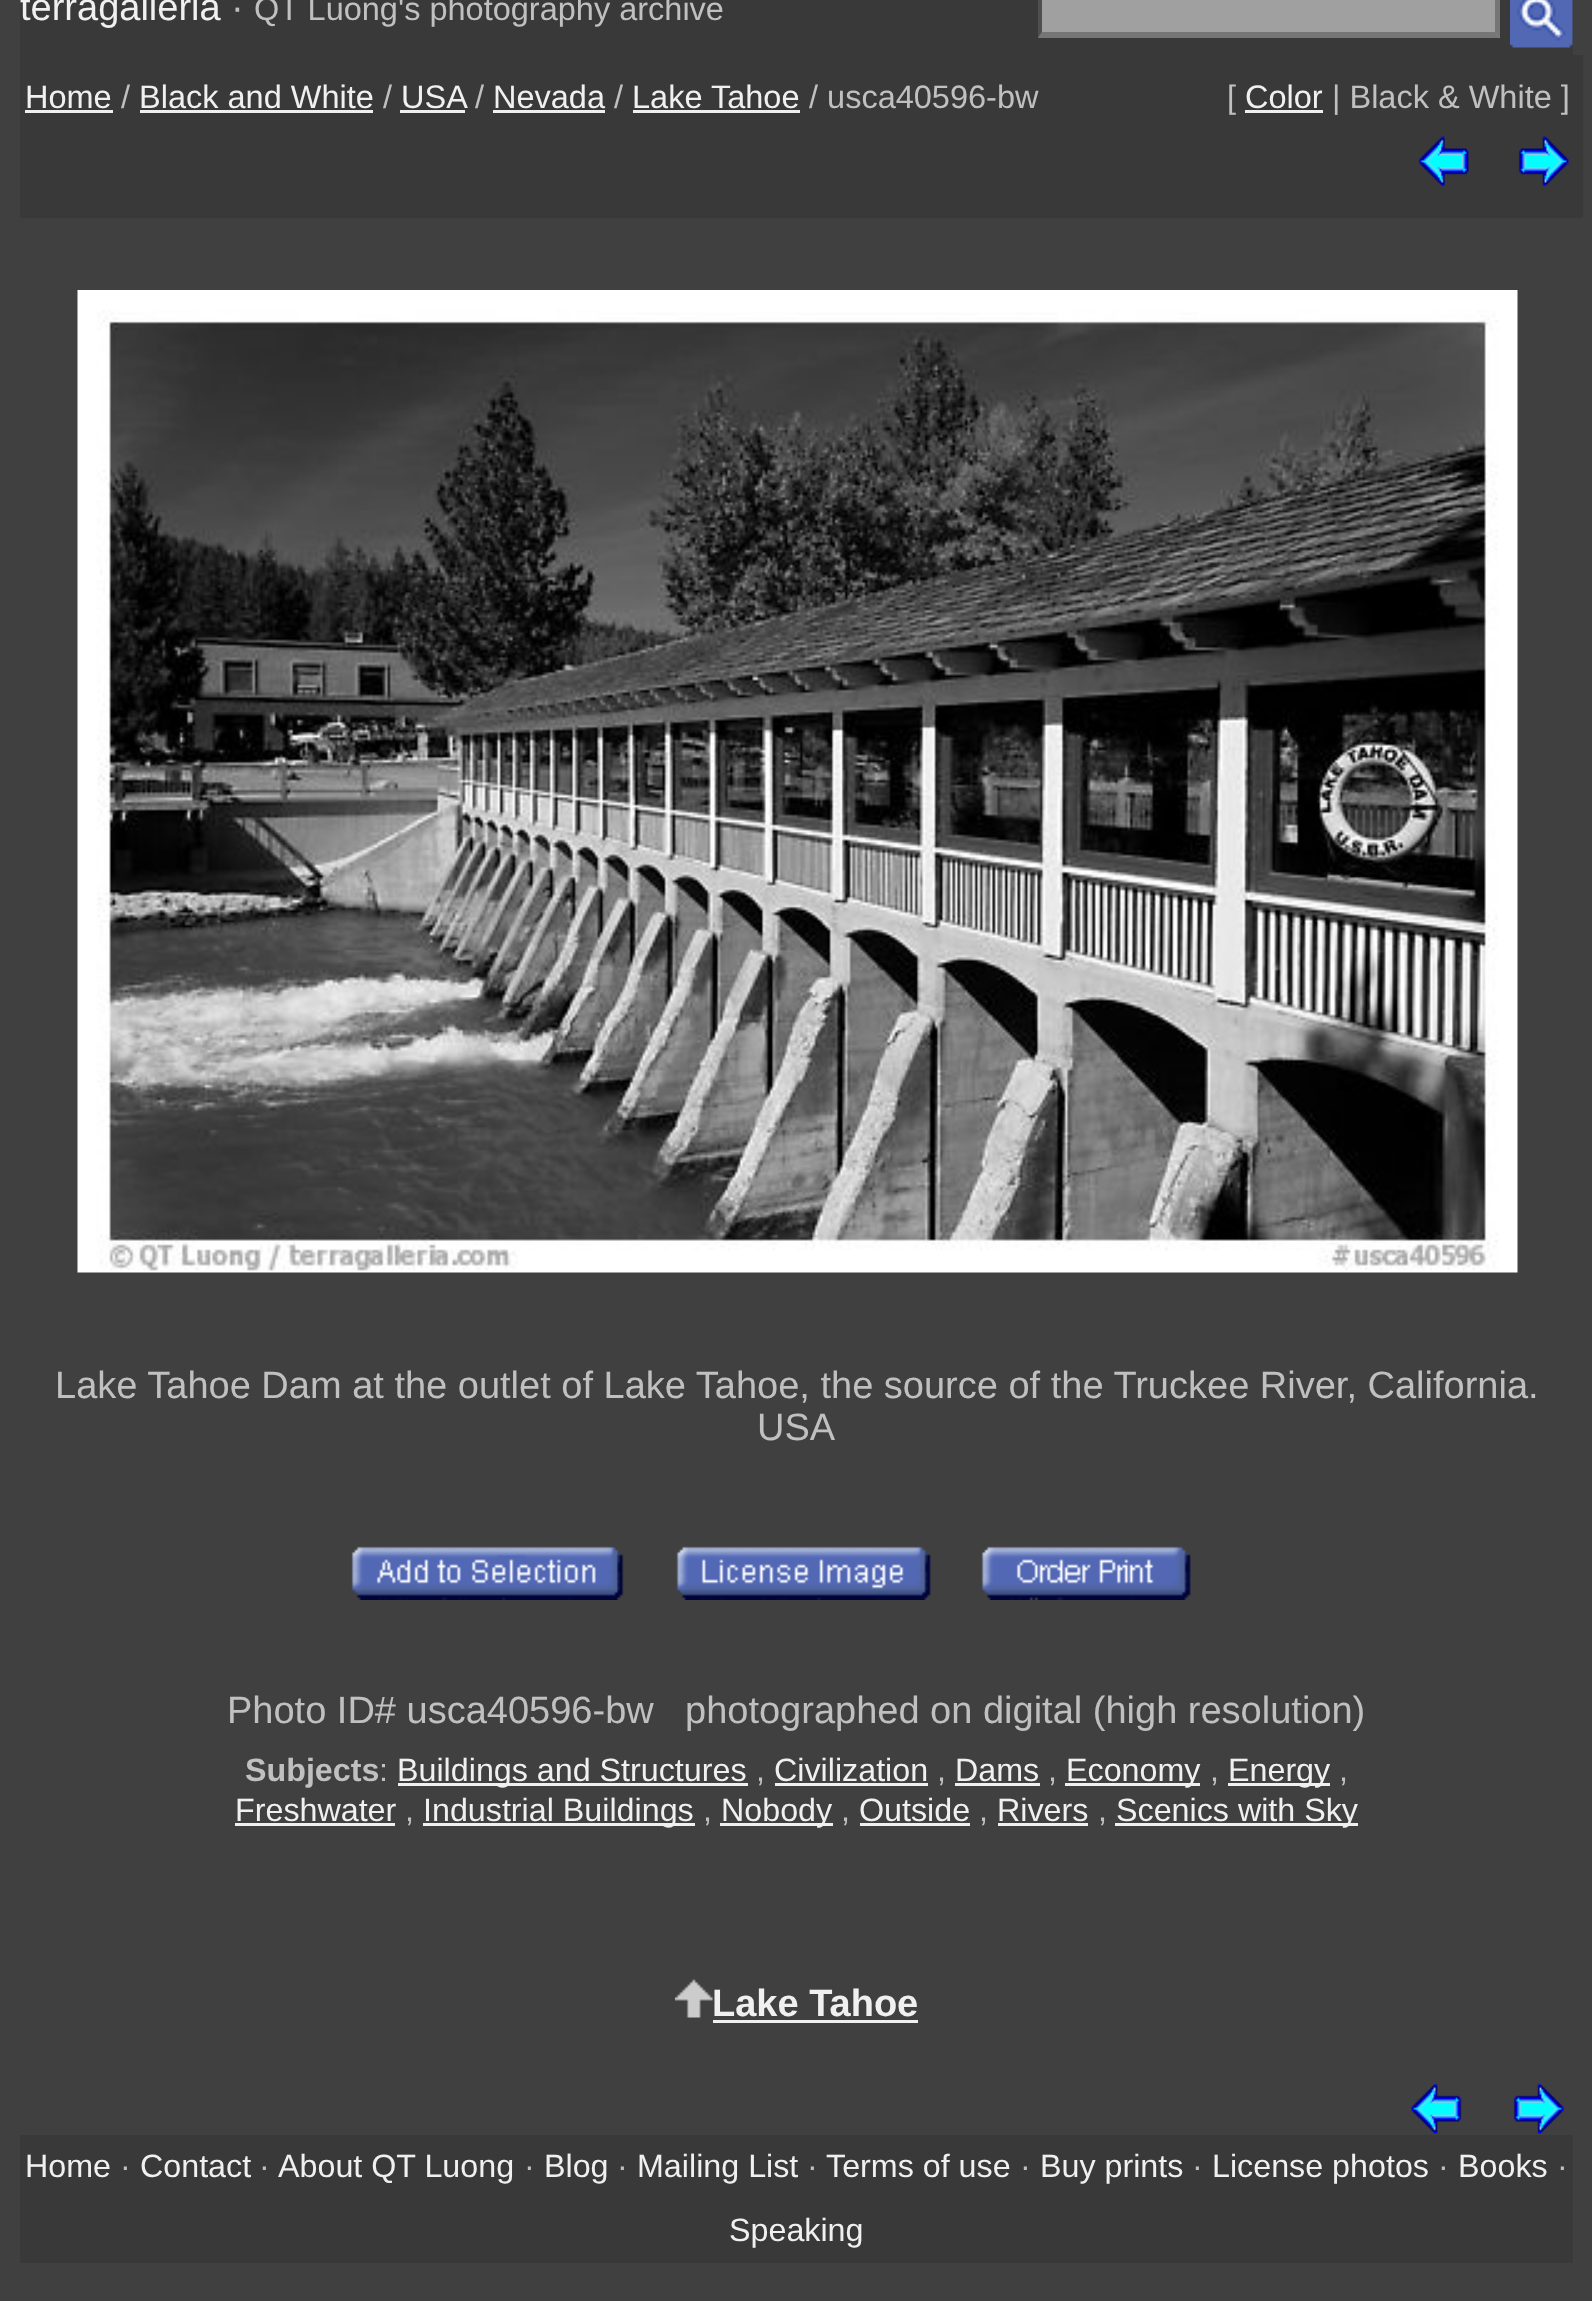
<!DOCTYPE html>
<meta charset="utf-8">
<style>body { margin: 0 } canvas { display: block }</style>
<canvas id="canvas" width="1592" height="2301"></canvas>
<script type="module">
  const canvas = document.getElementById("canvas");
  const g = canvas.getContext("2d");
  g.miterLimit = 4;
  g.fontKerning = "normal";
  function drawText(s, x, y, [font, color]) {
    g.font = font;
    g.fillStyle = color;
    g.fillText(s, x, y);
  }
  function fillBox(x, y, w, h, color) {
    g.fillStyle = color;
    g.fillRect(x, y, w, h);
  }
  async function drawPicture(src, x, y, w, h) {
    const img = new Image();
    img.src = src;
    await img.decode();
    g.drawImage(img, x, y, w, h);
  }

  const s1 = ["38px Liberation Sans", "#F0F0F0"];
  const s2 = ["38px Liberation Sans", "#C0C0C0"];
  const s3 = ["32.5px Liberation Sans", "#C0C0C0"];
  const s4 = ["32.5px Liberation Sans", "#F0F0F0"];
  const s5 = ["bold 32.25px Liberation Sans", "#C0C0C0"];
  const s6 = ["32.25px Liberation Sans", "#C0C0C0"];
  const s7 = ["32.25px Liberation Sans", "#F0F0F0"];
  const s8 = ["bold 38px Liberation Sans", "#F0F0F0"];

  fillBox(0, 0, 1592, 2301, "#404040");
  fillBox(20, 0, 1553, 55, "#393939");
  drawText("terragalleria", 20, 20, s1);
  drawText("·", 231, 20, s2);
  drawText("QT Luong's photography archive", 254, 20, s3);
  fillBox(1038, 0, 462, 38, "#A0A0A0");
  g.fillStyle = "#767676";
  g.beginPath();
  g.moveTo(1500, -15);
  g.lineTo(1500, 38);
  g.lineTo(1495, 32);
  g.lineTo(1495, -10);
  g.closePath();
  g.fill();
  g.beginPath();
  g.moveTo(1500, 38);
  g.lineTo(1038, 38);
  g.lineTo(1042, 32);
  g.lineTo(1495, 32);
  g.closePath();
  g.fill();
  g.fillStyle = "#4F4F4F";
  g.beginPath();
  g.moveTo(1038, 38);
  g.lineTo(1038, -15);
  g.lineTo(1042, -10);
  g.lineTo(1042, 32);
  g.closePath();
  g.fill();
  await drawPicture("pic1.png", 1510, 0, 63, 48);
  fillBox(20, 55, 1563, 163, "#393939");
  drawText("Home", 25, 108, s4);
  fillBox(25, 110, 88, 3, "#F0F0F0");
  drawText("/", 121, 108, s3);
  drawText("Black and White", 139, 108, s4);
  fillBox(140, 110, 233, 3, "#F0F0F0");
  drawText("/", 383, 108, s3);
  drawText("USA", 401, 108, s4);
  fillBox(400, 110, 65, 3, "#F0F0F0");
  drawText("/", 475, 108, s3);
  drawText("Nevada", 493, 108, s4);
  fillBox(493, 110, 112, 3, "#F0F0F0");
  drawText("/", 614, 108, s3);
  drawText("Lake Tahoe", 632, 108, s4);
  fillBox(633, 110, 167, 3, "#F0F0F0");
  drawText("/ usca40596-bw", 809, 108, s3);
  drawText("[", 1227, 108, s3);
  drawText("Color", 1245, 108, s4);
  fillBox(1245, 110, 78, 3, "#F0F0F0");
  drawText("| Black & White ]", 1332, 108, s3);
  await drawPicture("pic2.png", 1418, 136, 51, 51);
  await drawPicture("pic3.png", 1518, 136, 51, 51);
  await drawPicture("pic4.png", 77, 290, 1441, 983);
  drawText("Lake Tahoe Dam at the outlet of Lake Tahoe, the source of the Truckee River, California.", 55, 1398, s2);
  drawText("USA", 757, 1440, s2);
  await drawPicture("pic5.png", 351, 1546, 273, 54);
  await drawPicture("pic6.png", 676, 1546, 255, 54);
  await drawPicture("pic7.png", 981, 1546, 210, 54);
  drawText("Photo ID# usca40596-bw", 227, 1723, s2);
  drawText("photographed on digital (high resolution)", 685, 1723, s2);
  drawText("Subjects", 245, 1781, s5);
  drawText(":", 379, 1781, s6);
  fillBox(398, 1783, 350, 3, "#F0F0F0");
  drawText("Buildings and Structures", 397, 1781, s7);
  drawText(",", 756, 1781, s6);
  drawText("Civilization", 774, 1781, s7);
  fillBox(775, 1783, 153, 3, "#F0F0F0");
  drawText(",", 937, 1781, s6);
  drawText("Dams", 955, 1781, s7);
  fillBox(955, 1783, 85, 3, "#F0F0F0");
  drawText(",", 1048, 1781, s6);
  fillBox(1065, 1783, 135, 3, "#F0F0F0");
  drawText("Economy", 1066, 1781, s7);
  drawText(",", 1210, 1781, s6);
  fillBox(1228, 1783, 102, 3, "#F0F0F0");
  drawText("Energy", 1228, 1781, s7);
  drawText(",", 1339, 1781, s6);
  drawText("Freshwater", 235, 1821, s7);
  fillBox(235, 1823, 160, 3, "#F0F0F0");
  drawText(",", 405, 1821, s6);
  fillBox(423, 1823, 272, 3, "#F0F0F0");
  drawText("Industrial Buildings", 423, 1821, s7);
  drawText(",", 703, 1821, s6);
  fillBox(720, 1823, 113, 3, "#F0F0F0");
  drawText("Nobody", 721, 1821, s7);
  drawText(",", 841, 1821, s6);
  drawText("Outside", 859, 1821, s7);
  fillBox(860, 1823, 110, 3, "#F0F0F0");
  drawText(",", 979, 1821, s6);
  drawText("Rivers", 997, 1821, s7);
  fillBox(998, 1823, 90, 3, "#F0F0F0");
  drawText(",", 1098, 1821, s6);
  fillBox(1115, 1823, 243, 3, "#F0F0F0");
  drawText("Scenics with Sky", 1116, 1821, s7);
  await drawPicture("pic8.png", 675, 1979, 38, 39);
  drawText("Lake Tahoe", 712, 2016, s8);
  fillBox(713, 2020, 205, 3, "#F0F0F0");
  await drawPicture("pic9.png", 1411, 2083, 51, 51);
  await drawPicture("pic10.png", 1513, 2083, 51, 51);
  fillBox(20, 2135, 1553, 128, "#393939");
  drawText("Home", 25, 2177, s7);
  drawText("·", 120, 2177, s6);
  drawText("Contact", 140, 2177, s7);
  drawText("·", 259, 2177, s6);
  drawText("About QT Luong", 278, 2177, s7);
  drawText("·", 524, 2177, s6);
  drawText("Blog", 544, 2177, s7);
  drawText("·", 617, 2177, s6);
  drawText("Mailing List", 637, 2177, s7);
  drawText("·", 807, 2177, s6);
  drawText("Terms of use", 826, 2177, s7);
  drawText("·", 1020, 2177, s6);
  drawText("Buy prints", 1040, 2177, s7);
  drawText("·", 1192, 2177, s6);
  drawText("License photos", 1212, 2177, s7);
  drawText("·", 1438, 2177, s6);
  drawText("Books", 1458, 2177, s7);
  drawText("·", 1557, 2177, s6);
  drawText("Speaking", 729, 2241, s7);
</script>
